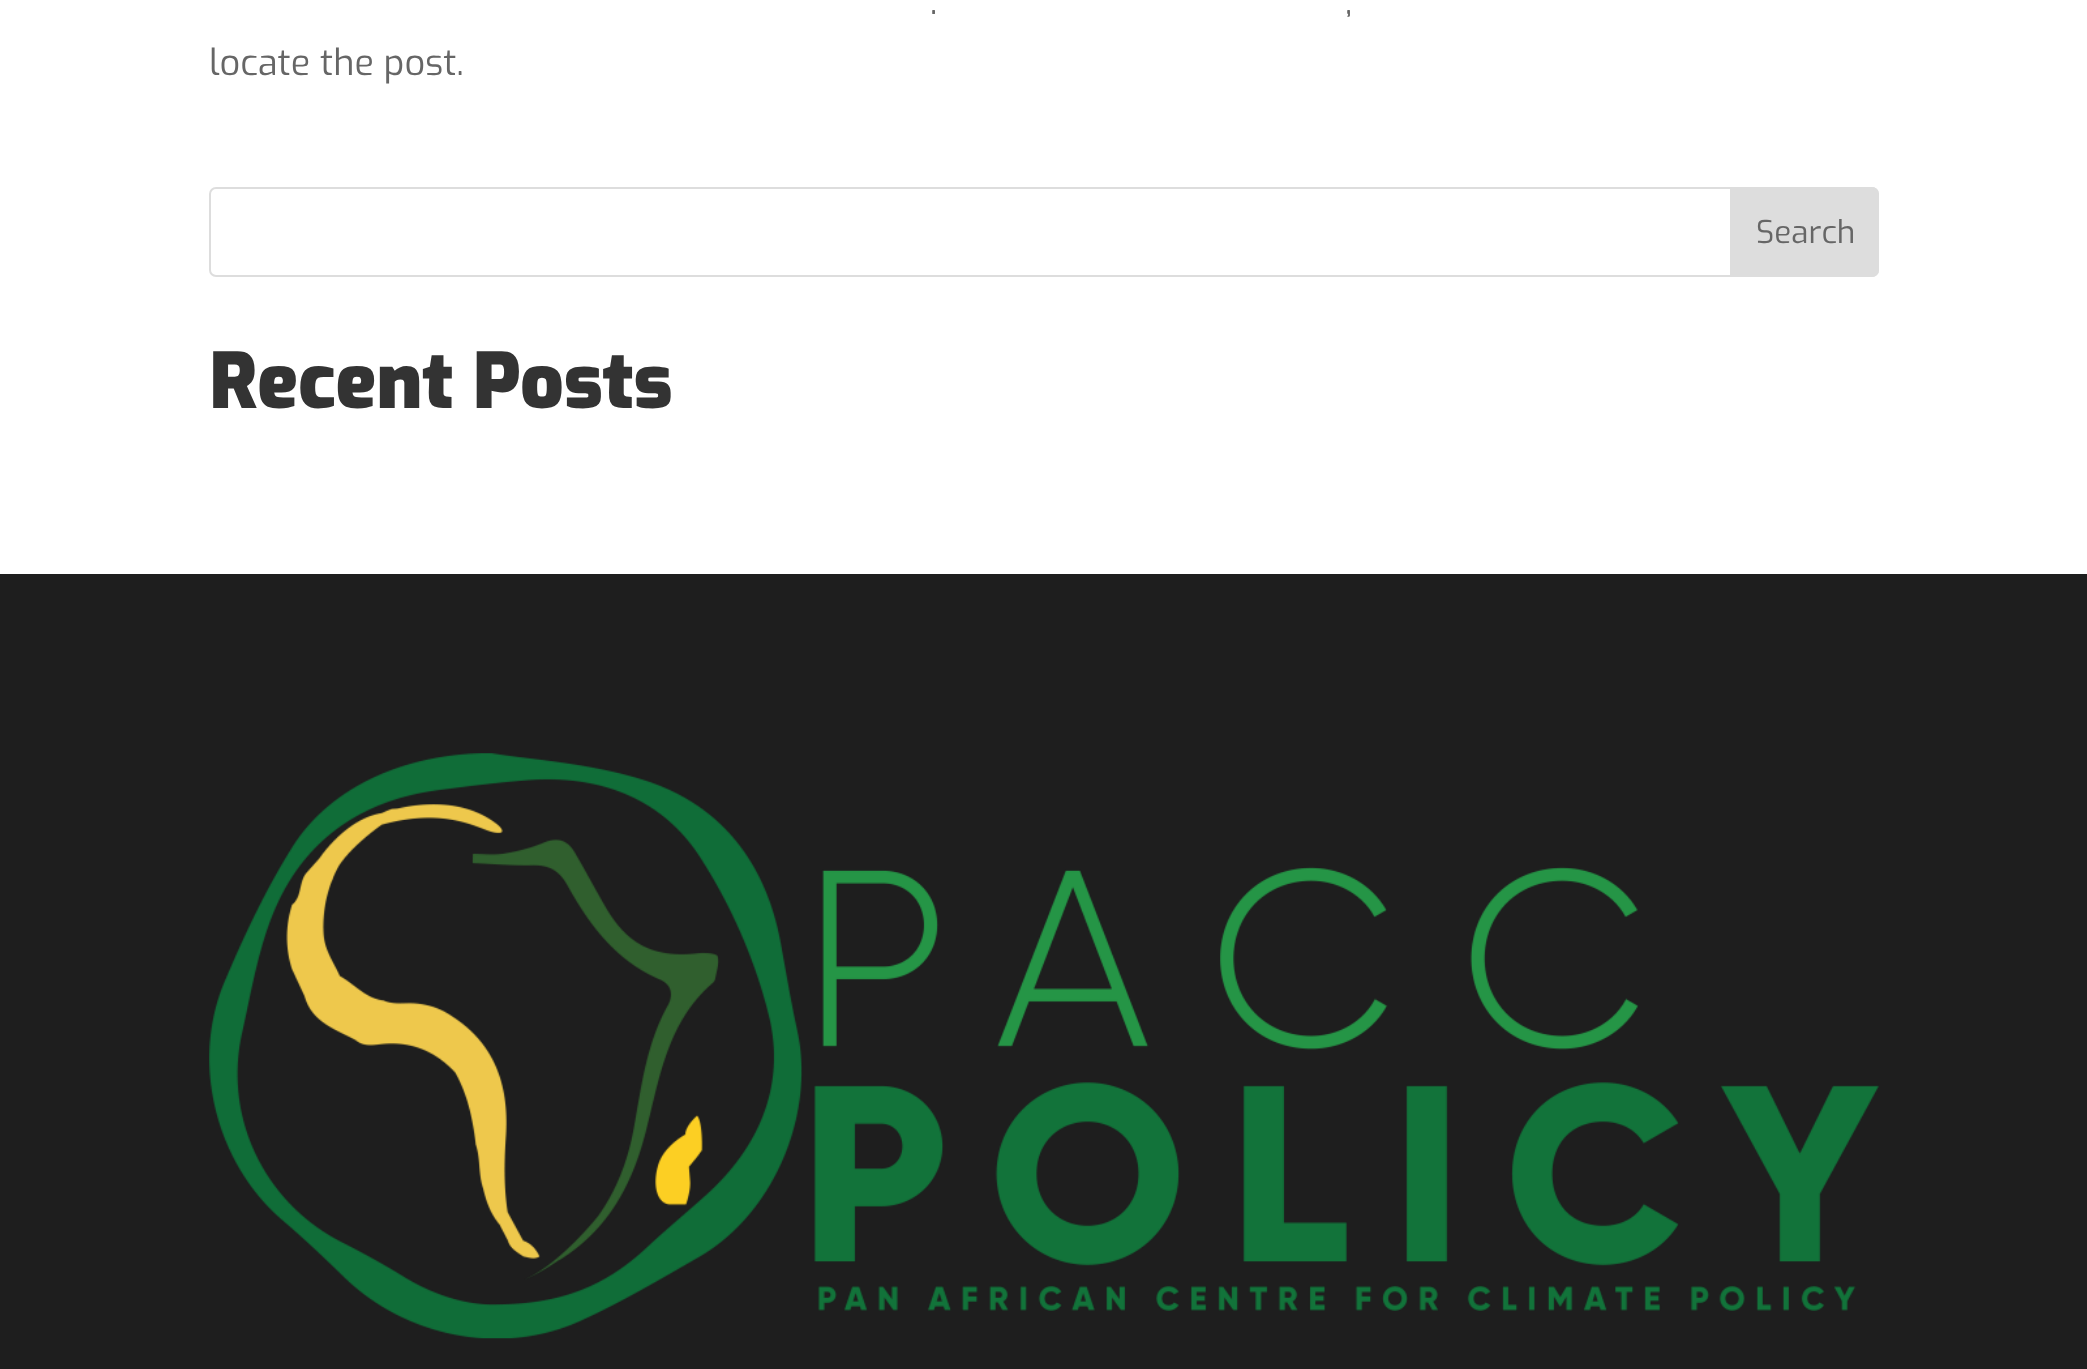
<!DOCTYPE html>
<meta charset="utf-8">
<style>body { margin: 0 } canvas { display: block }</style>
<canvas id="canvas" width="2087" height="1369"></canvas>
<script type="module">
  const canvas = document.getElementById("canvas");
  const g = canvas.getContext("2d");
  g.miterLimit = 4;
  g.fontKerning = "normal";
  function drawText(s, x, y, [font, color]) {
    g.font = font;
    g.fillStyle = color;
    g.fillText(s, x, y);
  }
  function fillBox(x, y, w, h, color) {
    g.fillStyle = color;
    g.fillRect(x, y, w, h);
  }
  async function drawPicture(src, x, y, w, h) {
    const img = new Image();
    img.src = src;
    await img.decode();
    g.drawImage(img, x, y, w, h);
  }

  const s1 = ["36px Exo", "#666666"];
  const s2 = ["31.5px Exo", "#666666"];
  const s3 = ["900 76.5px Exo", "#333333"];

  fillBox(0, 0, 2087, 1369, "#FFFFFF");
  drawText(".", 930, 14, s1);
  drawText(",", 1345, 14, s1);
  drawText("locate the post.", 209, 75, s1);
  g.beginPath();
  g.roundRect(210, 188, 1668, 88, 6);
  g.strokeStyle = "#DDDDDD";
  g.lineWidth = 2;
  g.stroke();
  g.fillStyle = "#DDDDDD";
  g.beginPath();
  g.roundRect(1731, 188, 147, 88, [0, 6, 6, 0]);
  g.fill();
  g.stroke();
  drawText("Search", 1756, 243, s2);
  drawText("Recent Posts", 209, 408, s3);
  fillBox(0, 574, 2087, 795, "#1E1E1E");
  await drawPicture("pic1.png", 209, 753, 1670, 586);
</script>
